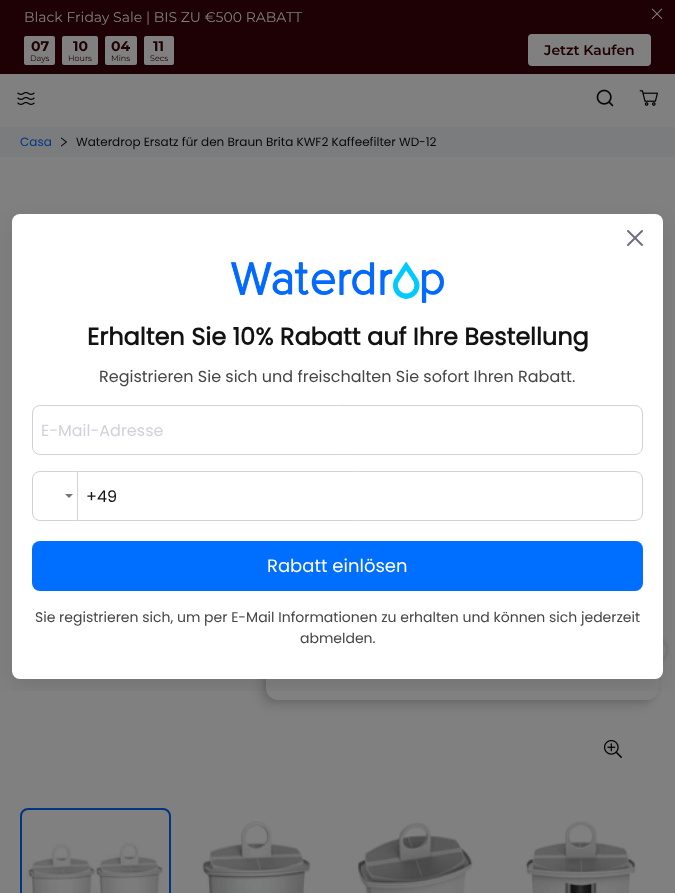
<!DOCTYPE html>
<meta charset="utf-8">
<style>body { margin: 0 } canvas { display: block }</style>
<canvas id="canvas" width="675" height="893"></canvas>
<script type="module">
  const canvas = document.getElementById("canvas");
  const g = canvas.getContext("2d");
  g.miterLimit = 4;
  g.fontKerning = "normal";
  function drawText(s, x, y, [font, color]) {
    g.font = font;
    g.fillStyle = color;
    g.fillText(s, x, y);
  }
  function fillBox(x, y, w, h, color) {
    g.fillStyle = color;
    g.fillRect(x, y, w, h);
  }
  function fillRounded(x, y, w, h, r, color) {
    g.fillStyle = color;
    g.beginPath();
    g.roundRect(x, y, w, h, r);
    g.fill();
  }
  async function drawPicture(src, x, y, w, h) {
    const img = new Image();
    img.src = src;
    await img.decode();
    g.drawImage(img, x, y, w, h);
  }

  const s1 = ["14px Montserrat", "#808080"];
  const s2 = ["bold 14px Montserrat", "#1E0104"];
  const s3 = ["8px Montserrat", "#1E0104"];
  const s4 = ["600 14px Montserrat", "#1E0104"];
  const s5 = ["12px Poppins", "#023580"];
  const s6 = ["12px Poppins", "#090909"];
  const s7 = ["bold 24px Poppins", "#121212"];
  const s8 = ["16px Poppins", "#454545"];
  const s9 = ["16px Poppins", "#D1D1DB"];
  const s10 = ["16px Poppins", "#121212"];
  const s11 = ["18px Poppins", "#FFFFFF"];
  const s12 = ["14px Poppins", "#454545"];

  fillBox(0, 0, 675, 893, "#808080");
  fillBox(0, 0, 675, 74, "#1E0104");
  drawText("Black Friday Sale | BIS ZU €500 RABATT", 24, 22, s1);
  await drawPicture("pic1.png", 651, 8, 12, 12);
  fillRounded(24, 36, 31, 29, 2, "#808080");
  drawText("07", 31, 51, s2);
  drawText("Days", 30, 61, s3);
  fillRounded(62, 36, 36, 29, 2, "#808080");
  drawText("10", 73, 51, s2);
  drawText("Hours", 68, 61, s3);
  fillRounded(105, 36, 32, 29, 2, "#808080");
  drawText("04", 111, 51, s2);
  drawText("Mins", 111, 61, s3);
  fillRounded(144, 36, 30, 29, 2, "#808080");
  drawText("11", 153, 51, s2);
  drawText("Secs", 150, 61, s3);
  fillRounded(528, 34, 123, 32, 4, "#808080");
  drawText("Jetzt Kaufen", 544, 55, s4);
  await drawPicture("pic2.png", 17, 92, 18, 13);
  await drawPicture("pic3.png", 596, 89, 18, 18);
  await drawPicture("pic4.png", 639, 90, 19, 16);
  fillBox(0, 127, 675, 30, "#7B7C7E");
  drawText("Casa", 20, 146, s5);
  await drawPicture("pic5.png", 61, 137, 6, 10);
  drawText("Waterdrop Ersatz für den Braun Brita KWF2 Kaffeefilter WD-12", 76, 146, s6);
  await drawPicture("pic6.png", 604, 740, 18, 18);
  g.beginPath();
  g.roundRect(21, 809, 149, 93, 7);
  g.strokeStyle = "#023580";
  g.lineWidth = 2;
  g.stroke();
  await drawPicture("pic7.png", 26, 814, 139, 79);
  await drawPicture("pic8.png", 202, 821, 109, 72);
  await drawPicture("pic9.png", 357, 822, 116, 71);
  await drawPicture("pic10.png", 525, 821, 111, 72);
  g.fillStyle = "rgba(0, 0, 0, 0.1)";
  g.filter = "blur(2.5px)";
  g.beginPath();
  g.roundRect(264, 648, 393, 54, 12);
  g.fill();
  g.filter = "none";
  g.fillStyle = "rgba(0, 0, 0, 0.09)";
  g.filter = "blur(5px)";
  g.beginPath();
  g.roundRect(259, 653, 393, 54, 12);
  g.fill();
  g.filter = "none";
  fillRounded(266, 646, 393, 54, 12, "#808080");
  g.fillStyle = "rgba(0, 0, 0, 0.15)";
  g.filter = "blur(2px)";
  g.beginPath();
  g.roundRect(641, 637, 26, 26, 13);
  g.fill();
  g.filter = "none";
  g.fillStyle = "#808080";
  g.beginPath();
  g.arc(654, 650, 12, 0, Math.PI * 2);
  g.fill();
  g.save();
  g.beginPath();
  g.rect(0, 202, 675, 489);
  g.clip();
  g.fillStyle = "rgba(18, 17, 39, 0.1)";
  g.filter = "blur(10px)";
  g.beginPath();
  g.roundRect(12, 222, 651, 465, 8);
  g.fill();
  g.filter = "none";
  g.restore();
  fillRounded(12, 214, 651, 465, 8, "#FFFFFF");
  await drawPicture("pic11.png", 627, 230, 16, 16);
  await drawPicture("pic12.png", 230, 262, 214, 41);
  drawText("Erhalten Sie 10% Rabatt auf Ihre Bestellung", 87, 345, s7);
  drawText("Registrieren Sie sich und freischalten Sie sofort Ihren Rabatt.", 99, 382, s8);
  g.beginPath();
  g.roundRect(32.5, 405.5, 610, 49, 7.5);
  g.strokeStyle = "#D1D1DB";
  g.lineWidth = 1;
  g.stroke();
  drawText("E-Mail-Adresse", 41, 436, s9);
  g.beginPath();
  g.roundRect(77.5, 471.5, 565, 49, [0, 7.5, 7.5, 0]);
  g.stroke();
  g.fillStyle = "#FFFFFF";
  g.beginPath();
  g.roundRect(32.5, 471.5, 45, 49, [7.5, 0, 0, 7.5]);
  g.fill();
  g.stroke();
  g.fillStyle = "#777777";
  g.beginPath();
  g.moveTo(65, 494);
  g.lineTo(73, 494);
  g.lineTo(69, 498);
  g.closePath();
  g.fill();
  drawText("+49", 86, 502, s10);
  fillRounded(32, 541, 611, 50, 8, "#006EFF");
  drawText("Rabatt einlösen", 267, 572, s11);
  drawText("Sie registrieren sich, um per E-Mail Informationen zu erhalten und können sich jederzeit", 35, 622, s12);
  drawText("abmelden.", 300, 643, s12);
  fillBox(673, 891, 2, 2, "#7B7B7B");
</script>
